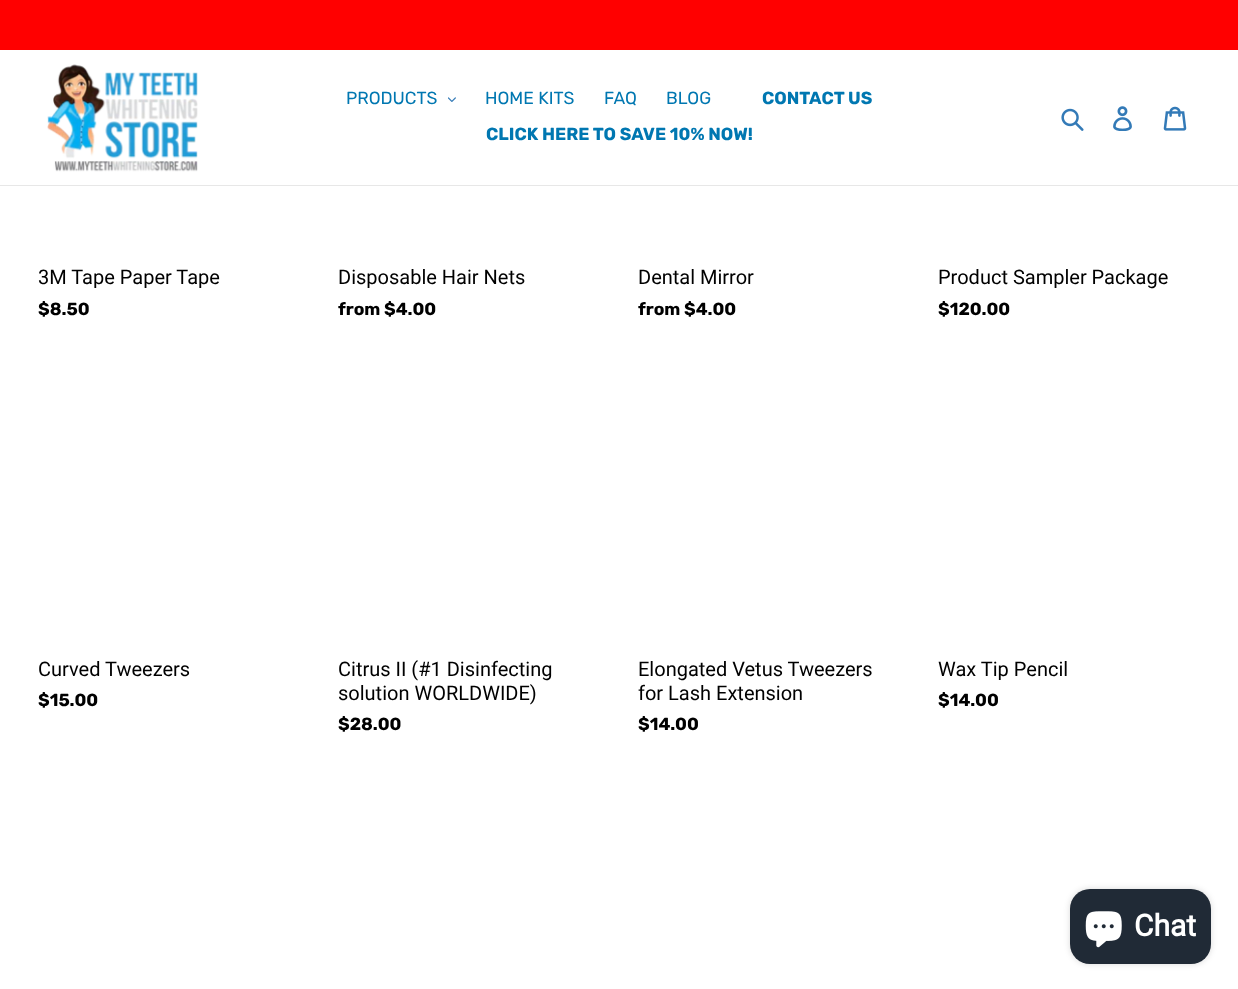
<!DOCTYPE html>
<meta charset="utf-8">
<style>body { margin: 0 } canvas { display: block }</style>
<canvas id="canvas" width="1238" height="989"></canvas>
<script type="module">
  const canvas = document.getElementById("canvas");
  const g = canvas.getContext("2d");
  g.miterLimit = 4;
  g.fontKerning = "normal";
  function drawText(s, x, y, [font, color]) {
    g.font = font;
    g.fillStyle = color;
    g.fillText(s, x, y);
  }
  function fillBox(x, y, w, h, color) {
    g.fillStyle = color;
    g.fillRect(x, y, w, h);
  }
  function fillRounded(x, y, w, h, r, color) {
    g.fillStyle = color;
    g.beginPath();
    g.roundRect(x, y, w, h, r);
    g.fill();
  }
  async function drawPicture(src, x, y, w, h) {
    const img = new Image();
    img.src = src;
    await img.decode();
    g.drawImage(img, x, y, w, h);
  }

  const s1 = ["17.5px Rubik", "#0077B1"];
  const s2 = ["bold 17.5px Rubik", "#0077B1"];
  const s3 = ["20px Roboto", "#000000"];
  const s4 = ["bold 17.5px Rubik", "#000000"];
  const s5 = ["bold 30px Roboto", "#FFFFFF"];

  fillBox(0, 0, 1238, 989, "#FFFFFF");
  fillBox(0, 0, 1238, 50, "#FF0000");
  fillBox(0, 185, 1238, 1, "#E7E7E7");
  await drawPicture("pic1.png", 47, 64, 151, 108);
  drawText("PRODUCTS", 346, 104, s1);
  await drawPicture("pic2.png", 448, 97, 8, 5);
  drawText("HOME KITS", 485, 104, s1);
  drawText("FAQ", 604, 104, s1);
  drawText("BLOG", 666, 104, s1);
  drawText("CONTACT US", 762, 104, s2);
  drawText("CLICK HERE TO SAVE 10% NOW!", 486, 140, s2);
  await drawPicture("pic3.png", 1061, 108, 23, 23);
  await drawPicture("pic4.png", 1113, 106, 19, 25);
  await drawPicture("pic5.png", 1163, 106, 24, 25);
  drawText("3M Tape Paper Tape", 38, 284, s3);
  drawText("$8.50", 38, 315, s4);
  drawText("Disposable Hair Nets", 338, 284, s3);
  drawText("from $4.00", 338, 315, s4);
  drawText("Dental Mirror", 638, 284, s3);
  drawText("from $4.00", 638, 315, s4);
  drawText("Product Sampler Package", 938, 284, s3);
  drawText("$120.00", 938, 315, s4);
  drawText("Curved Tweezers", 38, 676, s3);
  drawText("$15.00", 38, 706, s4);
  drawText("Citrus II (#1 Disinfecting", 338, 676, s3);
  drawText("solution WORLDWIDE)", 338, 700, s3);
  drawText("$28.00", 338, 730, s4);
  drawText("Elongated Vetus Tweezers", 638, 676, s3);
  drawText("for Lash Extension", 638, 700, s3);
  drawText("$14.00", 638, 730, s4);
  drawText("Wax Tip Pencil", 938, 676, s3);
  drawText("$14.00", 938, 706, s4);
  g.fillStyle = "rgba(0, 0, 0, 0.15)";
  g.filter = "blur(3px)";
  g.beginPath();
  g.roundRect(1070, 889, 141, 75, 20);
  g.fill();
  g.filter = "none";
  fillRounded(1070, 889, 141, 75, 20, "#202A36");
  await drawPicture("pic6.png", 1085, 911, 37, 37);
  drawText("Chat", 1134, 936, s5);
</script>
